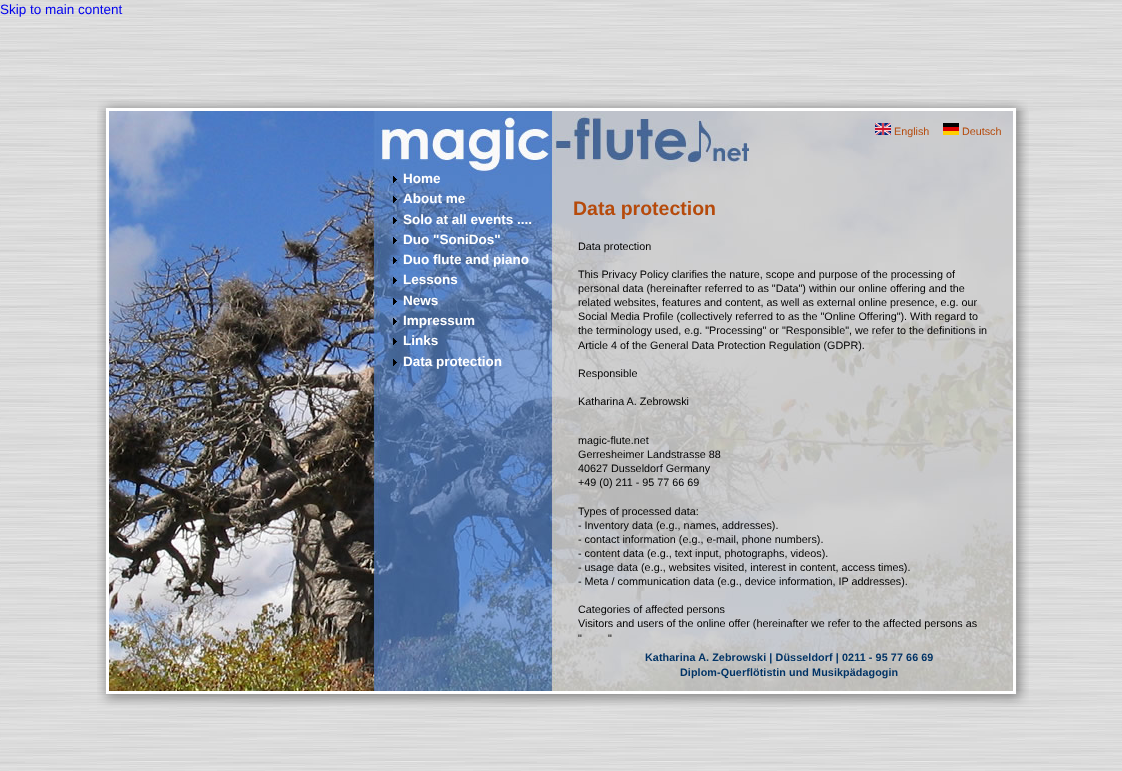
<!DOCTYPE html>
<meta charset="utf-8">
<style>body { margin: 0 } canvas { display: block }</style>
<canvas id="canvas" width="1122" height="771"></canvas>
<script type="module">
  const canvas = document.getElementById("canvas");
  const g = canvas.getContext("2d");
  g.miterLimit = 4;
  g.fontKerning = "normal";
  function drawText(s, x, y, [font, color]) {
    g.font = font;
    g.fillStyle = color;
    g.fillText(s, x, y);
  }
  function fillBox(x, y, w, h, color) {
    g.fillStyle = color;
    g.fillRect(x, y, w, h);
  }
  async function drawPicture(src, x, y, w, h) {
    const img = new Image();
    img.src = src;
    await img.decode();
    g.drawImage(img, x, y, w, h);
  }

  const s1 = ["13.5px Liberation Sans", "#0000EE"];
  const s2 = ["10.75px Liberation Sans", "#B64A0B"];
  const s3 = ["bold 13.5px Liberation Sans", "#FFFFFF"];
  const s4 = ["bold 19.5px Liberation Sans", "#B64A0B"];
  const s5 = ["10.8px Liberation Sans", "#000000"];
  const s6 = ["bold 10.75px Liberation Sans", "#003366"];

  fillBox(0, 0, 1122, 771, "#FFFFFF");
  await drawPicture("pic1.png", 0, 0, 1122, 771);
  drawText("Skip to main content", 0, 14, s1);
  await drawPicture("pic2.png", 98, 99, 930, 12);
  await drawPicture("pic3.png", 97, 111, 12, 580);
  await drawPicture("pic4.png", 109, 111, 904, 580);
  await drawPicture("pic5.png", 875, 123, 16, 12);
  drawText("English", 894, 135, s2);
  await drawPicture("pic6.png", 943, 123, 16, 12);
  drawText("Deutsch", 962, 135, s2);
  await drawPicture("pic7.png", 393, 176, 4, 7);
  drawText("Home", 403, 183, s3);
  await drawPicture("pic8.png", 393, 196, 4, 7);
  drawText("About me", 403, 203, s3);
  await drawPicture("pic9.png", 393, 217, 4, 7);
  drawText("Solo at all events ....", 403, 224, s3);
  await drawPicture("pic10.png", 393, 237, 4, 7);
  drawText("Duo \"SoniDos\"", 403, 244, s3);
  await drawPicture("pic11.png", 393, 257, 4, 7);
  drawText("Duo flute and piano", 403, 264, s3);
  await drawPicture("pic12.png", 393, 277, 4, 7);
  drawText("Lessons", 403, 284, s3);
  await drawPicture("pic13.png", 393, 298, 4, 7);
  drawText("News", 403, 305, s3);
  await drawPicture("pic14.png", 393, 318, 4, 7);
  drawText("Impressum", 403, 325, s3);
  await drawPicture("pic15.png", 393, 338, 4, 7);
  drawText("Links", 403, 345, s3);
  await drawPicture("pic16.png", 393, 359, 4, 7);
  drawText("Data protection", 403, 366, s3);
  drawText("Data protection", 573, 215, s4);
  drawText("Data protection", 578, 250, s5);
  drawText("This Privacy Policy clarifies the nature, scope and purpose of the processing of", 578, 278, s5);
  drawText("personal data (hereinafter referred to as \"Data\") within our online offering and the", 578, 292, s5);
  drawText("related websites, features and content, as well as external online presence, e.g. our", 578, 306, s5);
  drawText("Social Media Profile (collectively referred to as the \"Online Offering\"). With regard to", 578, 320, s5);
  drawText("the terminology used, e.g. \"Processing\" or \"Responsible\", we refer to the definitions in", 578, 334, s5);
  drawText("Article 4 of the General Data Protection Regulation (GDPR).", 578, 349, s5);
  drawText("Responsible", 578, 377, s5);
  drawText("Katharina A. Zebrowski", 578, 405, s5);
  drawText("magic-flute.net", 578, 444, s5);
  drawText("Gerresheimer Landstrasse 88", 578, 458, s5);
  drawText("40627 Dusseldorf Germany", 578, 472, s5);
  drawText("+49 (0) 211 - 95 77 66 69", 578, 486, s5);
  drawText("Types of processed data:", 578, 515, s5);
  drawText("- Inventory data (e.g., names, addresses).", 578, 529, s5);
  drawText("- contact information (e.g., e-mail, phone numbers).", 578, 543, s5);
  drawText("- content data (e.g., text input, photographs, videos).", 578, 557, s5);
  drawText("- usage data (e.g., websites visited, interest in content, access times).", 578, 571, s5);
  drawText("- Meta / communication data (e.g., device information, IP addresses).", 578, 585, s5);
  drawText("Categories of affected persons", 578, 613, s5);
  drawText("Visitors and users of the online offer (hereinafter we refer to the affected persons as", 578, 627, s5);
  drawText("\"", 578, 642, s5);
  drawText("\"", 608, 642, s5);
  g.letterSpacing = "0.1px";
  drawText("Katharina A. Zebrowski | Düsseldorf | 0211 - 95 77 66 69", 645, 661, s6);
  drawText("Diplom-Querflötistin und Musikpädagogin", 680, 676, s6);
  await drawPicture("pic17.png", 1013, 111, 16, 580);
  await drawPicture("pic18.png", 97, 691, 932, 16);
</script>
